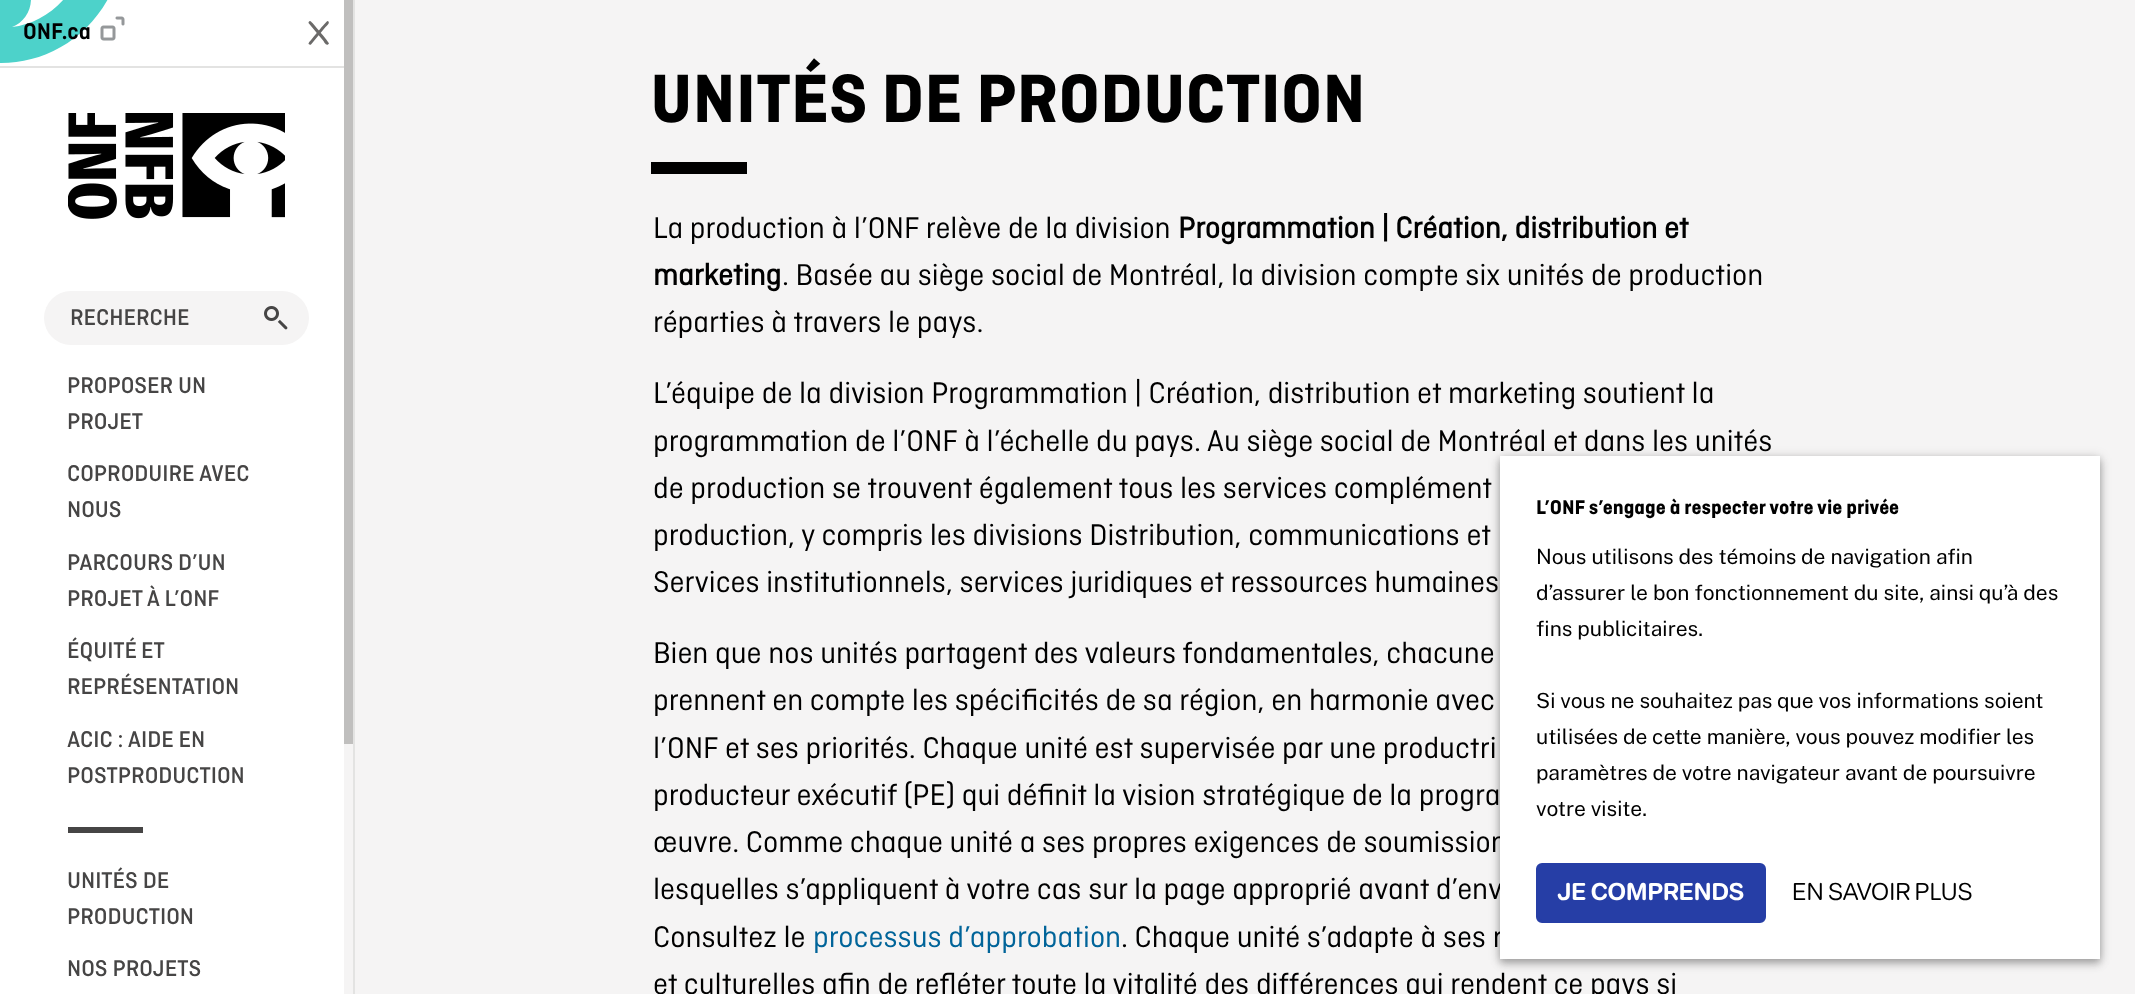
<!DOCTYPE html>
<meta charset="utf-8">
<style>body { margin: 0 } canvas { display: block }</style>
<canvas id="canvas" width="2135" height="994"></canvas>
<script type="module">
  const canvas = document.getElementById("canvas");
  const g = canvas.getContext("2d");
  g.miterLimit = 4;
  g.fontKerning = "normal";
  function drawText(s, x, y, [font, color]) {
    g.font = font;
    g.fillStyle = color;
    g.fillText(s, x, y);
  }
  function fillBox(x, y, w, h, color) {
    g.fillStyle = color;
    g.fillRect(x, y, w, h);
  }
  function fillRounded(x, y, w, h, r, color) {
    g.fillStyle = color;
    g.beginPath();
    g.roundRect(x, y, w, h, r);
    g.fill();
  }
  async function drawPicture(src, x, y, w, h) {
    const img = new Image();
    img.src = src;
    await img.decode();
    g.drawImage(img, x, y, w, h);
  }

  const s1 = ["600 24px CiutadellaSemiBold", "#000000"];
  const s2 = ["500 24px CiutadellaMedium", "#464545"];
  const s3 = ["bold 72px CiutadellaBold", "#000000"];
  const s4 = ["31.5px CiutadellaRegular", "#000000"];
  const s5 = ["bold 31.5px CiutadellaRegular", "#000000"];
  const s6 = ["31.5px CiutadellaRegular", "#006499"];
  const s7 = ["bold 21px CiutadellaBold", "#000000"];
  const s8 = ["21px Public Sans", "#000000"];
  const s9 = ["600 24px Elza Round", "#FFFFFF"];
  const s10 = ["24px Elza Round", "#000000"];

  fillBox(0, 0, 2135, 994, "#F5F4F4");
  fillBox(0, 0, 344, 994, "#FFFFFF");
  fillBox(353, 0, 2, 994, "#E3E3E2");
  fillBox(0, 66, 344, 2, "#E3E3E2");
  g.fillStyle = "#4DD2CA";
  g.beginPath();
  g.moveTo(1, 63);
  g.lineTo(0, 63);
  g.lineTo(0, -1);
  g.lineTo(31, -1);
  g.bezierCurveTo(31, 12, 23, 23, 12, 27);
  g.bezierCurveTo(31, 25, 50, 15, 64, -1);
  g.lineTo(108, -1);
  g.bezierCurveTo(84, 42, 42, 63, 1, 63);
  g.fill();
  g.fillStyle = "#6B6A69";
  g.beginPath();
  g.moveTo(309, 42.5);
  g.bezierCurveTo(311, 40, 326, 21.5, 327.5, 21);
  g.lineTo(328.5, 21.5);
  g.bezierCurveTo(330, 23.5, 326, 26.5, 325.5, 27);
  g.lineTo(311, 44.5);
  g.bezierCurveTo(310, 45, 308.5, 44.5, 308.5, 43.5);
  g.closePath();
  g.fill();
  g.beginPath();
  g.moveTo(311, 21.5);
  g.bezierCurveTo(313.5, 24, 329, 42, 329, 43.5);
  g.lineTo(328, 44.5);
  g.bezierCurveTo(326, 46, 323.5, 41, 323.5, 41);
  g.lineTo(308.5, 23);
  g.bezierCurveTo(308.5, 22, 309, 21, 310, 21);
  g.closePath();
  g.fill();
  drawText("ONF.ca", 23, 39, s1);
  await drawPicture("pic1.png", 100, 16, 25, 25);
  await drawPicture("pic2.png", 68, 113, 217, 106);
  fillRounded(44, 291, 265, 54, 27, "#F5F4F4");
  drawText("RECHERCHE", 70, 325, s2);
  await drawPicture("pic3.png", 264, 306, 24, 24);
  drawText("PROPOSER UN", 67, 393, s2);
  drawText("PROJET", 67, 429, s2);
  drawText("COPRODUIRE AVEC", 67, 481, s2);
  drawText("NOUS", 67, 517, s2);
  drawText("PARCOURS D’UN", 67, 570, s2);
  drawText("PROJET À L’ONF", 67, 606, s2);
  g.wordSpacing = "-1px";
  drawText("ÉQUITÉ ET", 67, 658, s2);
  g.wordSpacing = "0px";
  drawText("REPRÉSENTATION", 67, 694, s2);
  drawText("ACIC : AIDE EN", 67, 747, s2);
  drawText("POSTPRODUCTION", 67, 783, s2);
  fillBox(68, 827, 75, 6, "#464545");
  drawText("UNITÉS DE", 67, 888, s2);
  drawText("PRODUCTION", 67, 924, s2);
  drawText("NOS PROJETS", 67, 976, s2);
  fillBox(344, 0, 9, 744, "#C0BFBE");
  drawText("UNITÉS DE PRODUCTION", 650, 122, s3);
  fillBox(651, 162, 96, 12, "#000000");
  drawText("La production à l’ONF relève de la division", 653, 238, s4);
  drawText("Programmation | Création, distribution et", 1178, 238, s5);
  drawText("marketing", 653, 285, s5);
  drawText(". Basée au siège social de Montréal, la division compte six unités de production", 782, 285, s4);
  drawText("réparties à travers le pays.", 653, 332, s4);
  drawText("L’équipe de la division Programmation | Création, distribution et marketing soutient la", 653, 403, s4);
  drawText("programmation de l’ONF à l’échelle du pays. Au siège social de Montréal et dans les unités", 653, 451, s4);
  drawText("de production se trouvent également tous les services complément", 653, 498, s4);
  drawText("production, y compris les divisions Distribution, communications et", 653, 545, s4);
  drawText("Services institutionnels, services juridiques et ressources humaines", 653, 592, s4);
  drawText("Bien que nos unités partagent des valeurs fondamentales, chacune", 653, 663, s4);
  drawText("prennent en compte les spécificités de sa région, en harmonie avec", 653, 710, s4);
  drawText("l’ONF et ses priorités. Chaque unité est supervisée par une productri", 653, 758, s4);
  drawText("producteur exécutif (PE) qui définit la vision stratégique de la progra", 653, 805, s4);
  drawText("œuvre. Comme chaque unité a ses propres exigences de soumission", 653, 852, s4);
  drawText("lesquelles s’appliquent à votre cas sur la page approprié avant d’env", 653, 899, s4);
  drawText("Consultez le", 653, 947, s4);
  drawText("processus d’approbation", 813, 947, s6);
  drawText(". Chaque unité s’adapte à ses r", 1121, 947, s4);
  drawText("et culturelles afin de refléter toute la vitalité des différences qui rendent ce pays si", 653, 994, s4);
  g.fillStyle = "rgba(0, 0, 0, 0.2)";
  g.filter = "blur(6px)";
  g.beginPath();
  g.rect(1500, 458, 600, 502);
  g.fill();
  g.filter = "none";
  g.fillStyle = "rgba(0, 0, 0, 0.12)";
  g.filter = "blur(4px)";
  g.beginPath();
  g.rect(1500, 462, 600, 503);
  g.fill();
  g.filter = "none";
  g.fillStyle = "rgba(0, 0, 0, 0.14)";
  g.filter = "blur(3px)";
  g.beginPath();
  g.rect(1500, 459, 600, 503);
  g.fill();
  g.filter = "none";
  fillBox(1500, 456, 600, 503, "#FFFFFF");
  drawText("L’ONF s’engage à respecter votre vie privée", 1536, 514, s7);
  drawText("Nous utilisons des témoins de navigation afin", 1536, 564, s8);
  drawText("d’assurer le bon fonctionnement du site, ainsi qu’à des", 1536, 600, s8);
  drawText("fins publicitaires.", 1536, 636, s8);
  drawText("Si vous ne souhaitez pas que vos informations soient", 1536, 708, s8);
  drawText("utilisées de cette manière, vous pouvez modifier les", 1536, 744, s8);
  drawText("paramètres de votre navigateur avant de poursuivre", 1536, 780, s8);
  drawText("votre visite.", 1536, 816, s8);
  g.fillStyle = "#263EA6";
  g.beginPath();
  g.roundRect(1537.5, 864.5, 227, 57, 4.5);
  g.fill();
  g.strokeStyle = "#263EA6";
  g.lineWidth = 3;
  g.stroke();
  drawText("JE COMPRENDS", 1557, 900, s9);
  drawText("EN SAVOIR PLUS", 1792, 900, s10);
</script>
